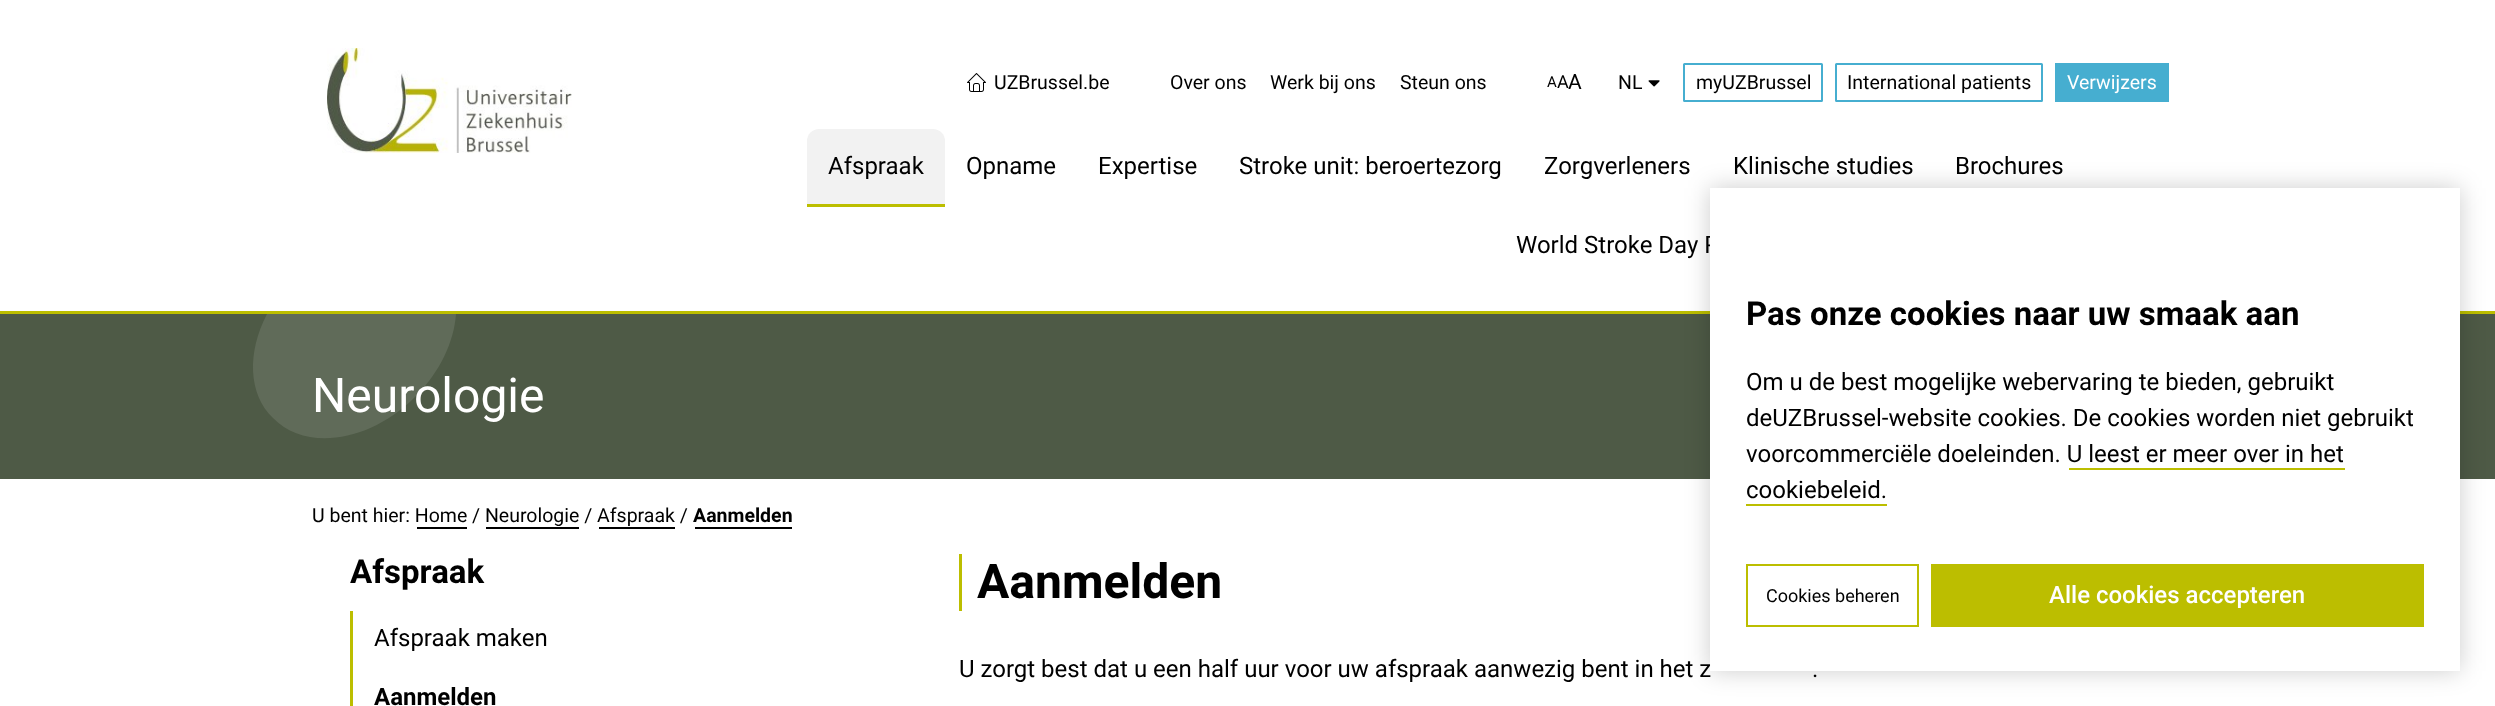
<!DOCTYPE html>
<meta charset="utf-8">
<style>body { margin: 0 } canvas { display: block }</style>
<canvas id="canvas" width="2495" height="706"></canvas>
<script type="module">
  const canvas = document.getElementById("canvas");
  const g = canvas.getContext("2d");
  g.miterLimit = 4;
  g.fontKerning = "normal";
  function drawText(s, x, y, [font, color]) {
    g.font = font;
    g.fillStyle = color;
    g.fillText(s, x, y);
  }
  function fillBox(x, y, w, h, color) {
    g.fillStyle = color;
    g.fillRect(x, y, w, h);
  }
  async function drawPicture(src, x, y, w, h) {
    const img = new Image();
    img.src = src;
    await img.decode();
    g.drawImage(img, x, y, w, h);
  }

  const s1 = ["19.5px Roboto", "#000000"];
  const s2 = ["15px Roboto", "#000000"];
  const s3 = ["18px Roboto", "#000000"];
  const s4 = ["21px Roboto", "#000000"];
  const s5 = ["19.5px Roboto", "#FFFFFF"];
  const s6 = ["24px Roboto", "#000000"];
  const s7 = ["48px Roboto", "#FFFFFF"];
  const s8 = ["bold 19.5px Roboto", "#000000"];
  const s9 = ["bold 33px Roboto", "#000000"];
  const s10 = ["500 24px Roboto", "#FFFFFF"];
  const s11 = ["bold 24px Roboto", "#000000"];
  const s12 = ["bold 48px Roboto", "#000000"];

  fillBox(0, 0, 2495, 706, "#FFFFFF");
  await drawPicture("pic1.png", 327, 48, 245, 105);
  await drawPicture("pic2.png", 967, 73, 19, 19);
  drawText("UZBrussel.be", 994, 89, s1);
  drawText("Over ons", 1170, 89, s1);
  drawText("Werk bij ons", 1270, 89, s1);
  drawText("Steun ons", 1400, 89, s1);
  drawText("A", 1547, 87, s2);
  drawText("A", 1557, 88, s3);
  drawText("A", 1568, 89, s4);
  drawText("NL", 1618, 89, s1);
  await drawPicture("pic3.png", 1648, 80, 12, 7);
  g.beginPath();
  g.roundRect(1684, 64, 138, 37, 0.5);
  g.strokeStyle = "#46AED0";
  g.lineWidth = 2;
  g.stroke();
  drawText("myUZBrussel", 1696, 89, s1);
  g.beginPath();
  g.roundRect(1836, 64, 206, 37, 0.5);
  g.stroke();
  drawText("International patients", 1847, 89, s1);
  fillBox(2055, 63, 114, 39, "#46AED0");
  drawText("Verwijzers", 2067, 89, s5);
  fillBox(0, 311, 2495, 3, "#BCBE00");
  g.fillStyle = "#F2F2F2";
  g.beginPath();
  g.roundRect(807, 129, 138, 78, [12, 12, 0, 0]);
  g.fill();
  fillBox(807, 204, 138, 3, "#BCBE00");
  drawText("Afspraak", 828, 174, s6);
  drawText("Opname", 966, 174, s6);
  drawText("Expertise", 1098, 174, s6);
  drawText("Stroke unit: beroertezorg", 1239, 174, s6);
  drawText("Zorgverleners", 1544, 174, s6);
  drawText("Klinische studies", 1733, 174, s6);
  drawText("Brochures", 1955, 174, s6);
  drawText("World Stroke Day P", 1516, 253, s6);
  fillBox(0, 314, 2495, 165, "#4E5A46");
  g.fillStyle = "#606B59";
  g.beginPath();
  g.moveTo(273, 418);
  g.bezierCurveTo(306, 452, 370, 442, 415, 397);
  g.bezierCurveTo(440, 372, 454, 342, 456, 314);
  g.lineTo(267, 314);
  g.bezierCurveTo(247, 352, 248, 394, 273, 418);
  g.closePath();
  g.fill();
  drawText("Neurologie", 312, 412, s7);
  drawText("U bent hier: Home / Neurologie / Afspraak /", 312, 522, s1);
  drawText("Aanmelden", 693, 522, s8);
  fillBox(695, 527, 97, 2, "#000000");
  fillBox(417, 527, 50, 2, "#000000");
  fillBox(486, 527, 93, 2, "#000000");
  fillBox(599, 527, 76, 2, "#000000");
  g.fillStyle = "rgba(0, 0, 0, 0.2)";
  g.filter = "blur(12px)";
  g.beginPath();
  g.rect(1710, 188, 750, 483);
  g.fill();
  g.filter = "none";
  fillBox(1710, 188, 750, 483, "#FFFFFF");
  drawText("Pas onze cookies naar uw smaak aan", 1746, 325, s9);
  drawText("Om u de best mogelijke webervaring te bieden, gebruikt", 1746, 390, s6);
  drawText("deUZBrussel-website cookies. De cookies worden niet gebruikt", 1746, 426, s6);
  drawText("voorcommerciële doeleinden. U leest er meer over in het", 1746, 462, s6);
  drawText("cookiebeleid.", 1746, 498, s6);
  fillBox(2069, 468, 276, 2, "#BCBE00");
  fillBox(1746, 504, 141, 2, "#BCBE00");
  g.strokeStyle = "#BCBE00";
  g.strokeRect(1747, 565, 171, 61);
  drawText("Cookies beheren", 1766, 602, s3);
  fillBox(1931, 564, 493, 63, "#BCBE00");
  drawText("Alle cookies accepteren", 2049, 603, s10);
  drawText("Afspraak", 350, 583, s9);
  fillBox(350, 611, 3, 95, "#BCBE00");
  drawText("Afspraak maken", 374, 646, s6);
  drawText("Aanmelden", 374, 705, s11);
  fillBox(959, 554, 3, 57, "#BCBE00");
  drawText("Aanmelden", 977, 598, s12);
  drawText("U zorgt best dat u een half uur voor uw afspraak aanwezig bent in het z", 959, 677, s6);
  drawText(".", 1812, 677, s6);
</script>
